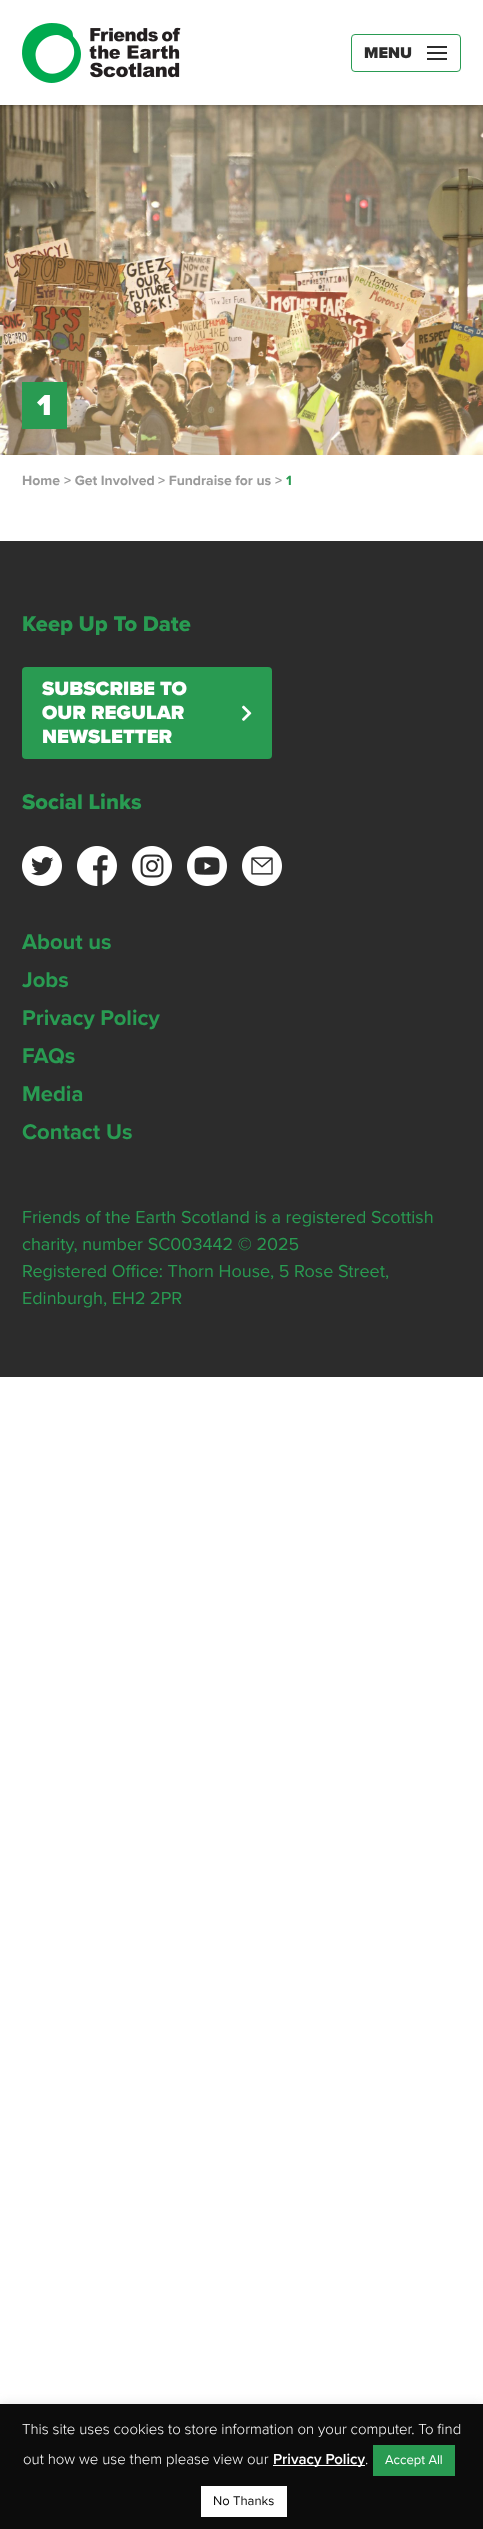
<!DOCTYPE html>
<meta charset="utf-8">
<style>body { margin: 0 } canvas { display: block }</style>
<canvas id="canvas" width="483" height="2529"></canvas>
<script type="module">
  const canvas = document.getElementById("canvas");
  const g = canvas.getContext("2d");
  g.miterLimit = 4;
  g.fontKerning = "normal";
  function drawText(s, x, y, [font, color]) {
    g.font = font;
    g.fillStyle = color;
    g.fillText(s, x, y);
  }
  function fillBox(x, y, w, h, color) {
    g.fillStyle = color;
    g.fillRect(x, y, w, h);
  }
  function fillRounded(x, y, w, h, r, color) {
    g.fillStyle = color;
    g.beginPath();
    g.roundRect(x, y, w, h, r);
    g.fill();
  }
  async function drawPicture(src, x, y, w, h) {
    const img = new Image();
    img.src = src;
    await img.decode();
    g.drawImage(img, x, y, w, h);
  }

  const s1 = ["900 16px Proxima Nova", "#2C2C2C"];
  const s2 = ["900 30px Proxima Nova", "#FFFFFF"];
  const s3 = ["bold 14px Proxima Nova", "#9A9A9A"];
  const s4 = ["bold 14px Proxima Nova", "#299B52"];
  const s5 = ["800 22px Proxima Nova", "#299B52"];
  const s6 = ["900 20px Proxima Nova", "#FFFFFF"];
  const s7 = ["bold 22px Proxima Nova", "#299B52"];
  const s8 = ["18px Proxima Nova", "#299B52"];
  const s9 = ["300 15px Proxima Nova", "#FFFFFF"];
  const s10 = ["600 15px Proxima Nova", "#FFFFFF"];
  const s11 = ["13px Proxima Nova", "#FFFFFF"];
  const s12 = ["13px Proxima Nova", "#0A0A0A"];

  fillBox(0, 0, 483, 2529, "#FFFFFF");
  await drawPicture("pic2.png", 0, 105, 483, 350);
  g.save();
  g.beginPath();
  g.rect(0, 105, 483, 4);
  g.clip();
  g.fillStyle = "rgba(0, 0, 0, 0.5)";
  g.filter = "blur(2.5px)";
  g.beginPath();
  g.rect(0, 0, 483, 105);
  g.fill();
  g.filter = "none";
  g.restore();
  await drawPicture("pic1.png", 22, 23, 159, 60);
  g.beginPath();
  g.roundRect(351.5, 34.5, 109, 37, 3.5);
  g.strokeStyle = "#299B52";
  g.stroke();
  drawText("MENU", 364, 58, s1);
  fillBox(427, 46, 20, 2, "#2C2C2C");
  fillBox(427, 52, 20, 2, "#2C2C2C");
  fillBox(427, 58, 20, 2, "#2C2C2C");
  fillBox(22, 382, 45, 47, "#299B52");
  drawText("1", 37, 415, s2);
  drawText("Home", 22, 485, s3);
  drawText("> Get Involved", 64, 485, s3);
  drawText("> Fundraise for us", 158, 485, s3);
  drawText(">", 275, 485, s3);
  drawText("1", 286, 485, s4);
  fillBox(0, 541, 483, 836, "#2C2C2C");
  drawText("Keep Up To Date", 22, 631, s5);
  fillRounded(22, 667, 250, 92, 4, "#299B52");
  drawText("SUBSCRIBE TO", 42, 695, s6);
  drawText("OUR REGULAR", 42, 719, s6);
  await drawPicture("pic3.png", 242, 705, 10, 16);
  drawText("NEWSLETTER", 42, 743, s6);
  drawText("Social Links", 22, 809, s5);
  await drawPicture("pic4.png", 22, 846, 40, 40);
  await drawPicture("pic5.png", 77, 846, 40, 40);
  await drawPicture("pic6.png", 132, 846, 40, 40);
  await drawPicture("pic7.png", 187, 846, 40, 40);
  await drawPicture("pic8.png", 242, 846, 40, 40);
  drawText("About us", 22, 949, s7);
  drawText("Jobs", 22, 987, s7);
  drawText("Privacy Policy", 22, 1025, s7);
  drawText("FAQs", 22, 1063, s7);
  drawText("Media", 22, 1101, s7);
  drawText("Contact Us", 22, 1139, s7);
  drawText("Friends of the Earth Scotland is a registered Scottish", 22, 1223, s8);
  drawText("charity, number SC003442 © 2025", 22, 1250, s8);
  drawText("Registered Office: Thorn House, 5 Rose Street,", 22, 1277, s8);
  drawText("Edinburgh, EH2 2PR", 22, 1304, s8);
  g.fillStyle = "rgba(172, 171, 171, 0.3)";
  g.filter = "blur(5px)";
  g.beginPath();
  g.rect(0, 2403, 483, 125);
  g.fill();
  g.filter = "none";
  fillBox(0, 2404, 483, 125, "#0C0C0C");
  drawText("This site uses cookies to store information on your computer. To find", 22, 2434, s9);
  drawText("out how we use them please view our", 23, 2464, s9);
  fillBox(273, 2465, 92, 1, "#FFFFFF");
  drawText("Privacy Policy", 273, 2464, s10);
  drawText(".", 365, 2464, s9);
  fillBox(373, 2445, 82, 31, "#299B52");
  drawText("Accept All", 385, 2464, s11);
  fillBox(201, 2486, 86, 31, "#FFFFFF");
  drawText("No Thanks", 213, 2505, s12);
</script>
